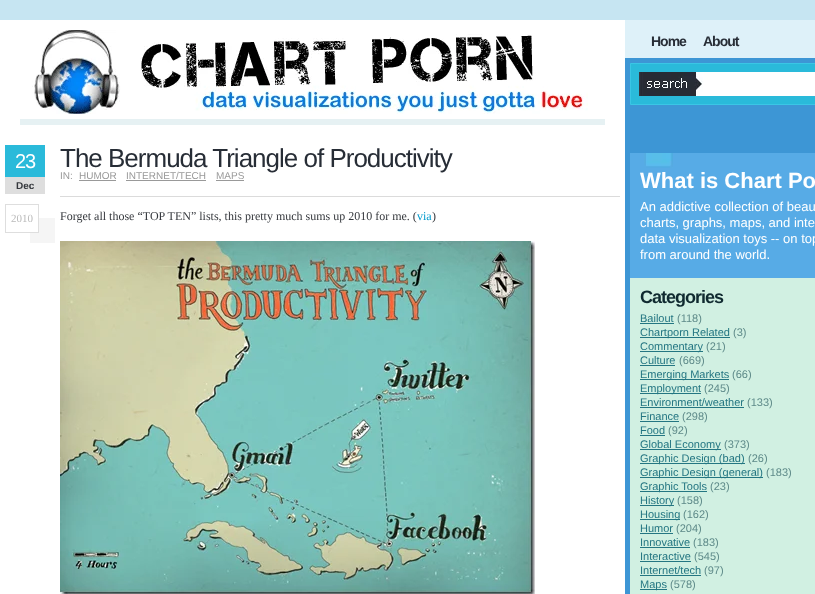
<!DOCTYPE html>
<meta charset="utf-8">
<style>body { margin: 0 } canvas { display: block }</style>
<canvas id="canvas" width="815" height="594"></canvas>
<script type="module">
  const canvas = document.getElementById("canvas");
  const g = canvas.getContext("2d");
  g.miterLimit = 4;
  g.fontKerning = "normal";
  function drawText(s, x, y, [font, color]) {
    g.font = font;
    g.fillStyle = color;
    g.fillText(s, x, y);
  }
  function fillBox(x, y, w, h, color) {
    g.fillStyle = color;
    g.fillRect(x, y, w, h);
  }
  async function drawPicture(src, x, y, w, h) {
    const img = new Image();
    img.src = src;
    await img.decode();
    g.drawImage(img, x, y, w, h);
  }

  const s1 = ["20px Liberation Sans", "#FFFFFF"];
  const s2 = ["bold 10px Liberation Sans", "#35383D"];
  const s3 = ["11px Liberation Serif", "#BABABA"];
  const s4 = ["26px Liberation Sans", "#272D36"];
  const s5 = ["10px Liberation Sans", "#999999"];
  const s6 = ["12px Liberation Serif", "#35383D"];
  const s7 = ["12px Liberation Serif", "#0099CC"];
  const s8 = ["bold 14px Liberation Sans", "#272D36"];
  const s9 = ["bold 22px Liberation Sans", "#FFFFFF"];
  const s10 = ["13px Liberation Sans", "#FFFFFF"];
  const s11 = ["bold 18px Liberation Sans", "#102A30"];
  const s12 = ["11px Liberation Sans", "#247682"];
  const s13 = ["11px Liberation Sans", "#5E8A89"];

  fillBox(0, 0, 815, 594, "#C6E5F2");
  fillBox(0, 20, 625, 574, "#FFFFFF");
  fillBox(20, 119, 585, 6, "#E6F1F3");
  await drawPicture("pic1.png", 32, 30, 556, 84);
  fillBox(30, 218, 25, 25, "#F5F5F5");
  fillBox(5, 145, 40, 32, "#2ABADA");
  g.letterSpacing = "-1px";
  drawText("23", 15, 168, s1);
  fillBox(5, 177, 40, 17, "#DEDEDE");
  g.letterSpacing = "0px";
  drawText("Dec", 16, 189, s2);
  fillBox(30, 218, 8, 14, "#FFFFFF");
  g.strokeStyle = "#DEDEDE";
  g.strokeRect(5.5, 204.5, 33, 28);
  drawText("2010", 11, 222, s3);
  g.letterSpacing = "-1px";
  drawText("The Bermuda Triangle of Productivity", 60, 167, s4);
  g.letterSpacing = "0px";
  drawText("IN:", 60, 179, s5);
  drawText("HUMOR", 79, 179, s5);
  fillBox(79, 180, 37, 1, "#999999");
  drawText("INTERNET/TECH", 126, 179, s5);
  fillBox(126, 180, 80, 1, "#999999");
  drawText("MAPS", 216, 179, s5);
  fillBox(216, 180, 28, 1, "#999999");
  fillBox(60, 196, 560, 1, "#DBDBDB");
  drawText("Forget all those “TOP TEN” lists, this pretty much sums up 2010 for me. (", 60, 220, s6);
  drawText("via", 417, 220, s7);
  drawText(")", 432, 220, s6);
  await drawPicture("pic2.png", 60, 241, 475, 353);
  fillBox(625, 20, 190, 38, "#DEF1F9");
  g.letterSpacing = "-1px";
  drawText("Home", 651, 46, s8);
  drawText("About", 703, 46, s8);
  fillBox(625, 58, 190, 536, "#3D96D5");
  g.fillStyle = "#2ABADA";
  g.beginPath();
  g.rect(630.5, 63.5, 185, 41);
  g.fill();
  g.strokeStyle = "#3AC6E5";
  g.stroke();
  await drawPicture("pic3.png", 639, 72, 176, 24);
  fillBox(630, 153, 185, 125, "#57ABE6");
  await drawPicture("pic4.png", 644, 153, 29, 15);
  g.letterSpacing = "0px";
  drawText("What is Chart Po", 640, 188, s9);
  drawText("An addictive collection of beau", 640, 211, s10);
  drawText("charts, graphs, maps, and inte", 640, 227, s10);
  drawText("data visualization toys -- on top", 640, 243, s10);
  drawText("from around the world.", 640, 259, s10);
  fillBox(630, 278, 185, 316, "#D1F0E2");
  g.letterSpacing = "-1px";
  drawText("Categories", 640, 303, s11);
  g.letterSpacing = "0px";
  drawText("Bailout", 640, 322, s12);
  fillBox(640, 323, 34, 1, "#247682");
  drawText("(118)", 677, 322, s13);
  fillBox(640, 337, 90, 1, "#247682");
  drawText("Chartporn Related", 640, 336, s12);
  drawText("(3)", 733, 336, s13);
  fillBox(640, 351, 63, 1, "#247682");
  drawText("Commentary", 640, 350, s12);
  drawText("(21)", 706, 350, s13);
  drawText("Culture", 640, 364, s12);
  fillBox(640, 365, 35, 1, "#247682");
  drawText("(669)", 679, 364, s13);
  fillBox(640, 379, 89, 1, "#247682");
  drawText("Emerging Markets", 640, 378, s12);
  drawText("(66)", 732, 378, s13);
  fillBox(640, 393, 61, 1, "#247682");
  drawText("Employment", 640, 392, s12);
  drawText("(245)", 704, 392, s13);
  drawText("Environment/weather", 640, 406, s12);
  fillBox(640, 407, 104, 1, "#247682");
  drawText("(133)", 747, 406, s13);
  drawText("Finance", 640, 420, s12);
  fillBox(640, 421, 39, 1, "#247682");
  drawText("(298)", 682, 420, s13);
  drawText("Food", 640, 434, s12);
  fillBox(640, 435, 25, 1, "#247682");
  drawText("(92)", 668, 434, s13);
  fillBox(640, 449, 81, 1, "#247682");
  drawText("Global Economy", 640, 448, s12);
  drawText("(373)", 724, 448, s13);
  fillBox(640, 463, 105, 1, "#247682");
  drawText("Graphic Design (bad)", 640, 462, s12);
  drawText("(26)", 748, 462, s13);
  fillBox(640, 477, 123, 1, "#247682");
  drawText("Graphic Design (general)", 640, 476, s12);
  drawText("(183)", 766, 476, s13);
  fillBox(640, 491, 67, 1, "#247682");
  drawText("Graphic Tools", 640, 490, s12);
  drawText("(23)", 710, 490, s13);
  fillBox(640, 505, 34, 1, "#247682");
  drawText("History", 640, 504, s12);
  drawText("(158)", 677, 504, s13);
  fillBox(640, 519, 40, 1, "#247682");
  drawText("Housing", 640, 518, s12);
  drawText("(162)", 683, 518, s13);
  drawText("Humor", 640, 532, s12);
  fillBox(640, 533, 33, 1, "#247682");
  drawText("(204)", 676, 532, s13);
  drawText("Innovative", 640, 546, s12);
  fillBox(640, 547, 50, 1, "#247682");
  drawText("(183)", 693, 546, s13);
  drawText("Interactive", 640, 560, s12);
  fillBox(640, 561, 51, 1, "#247682");
  drawText("(545)", 694, 560, s13);
  drawText("Internet/tech", 640, 574, s12);
  fillBox(640, 575, 61, 1, "#247682");
  drawText("(97)", 704, 574, s13);
  fillBox(640, 589, 27, 1, "#247682");
  drawText("Maps", 640, 588, s12);
  drawText("(578)", 670, 588, s13);
</script>
